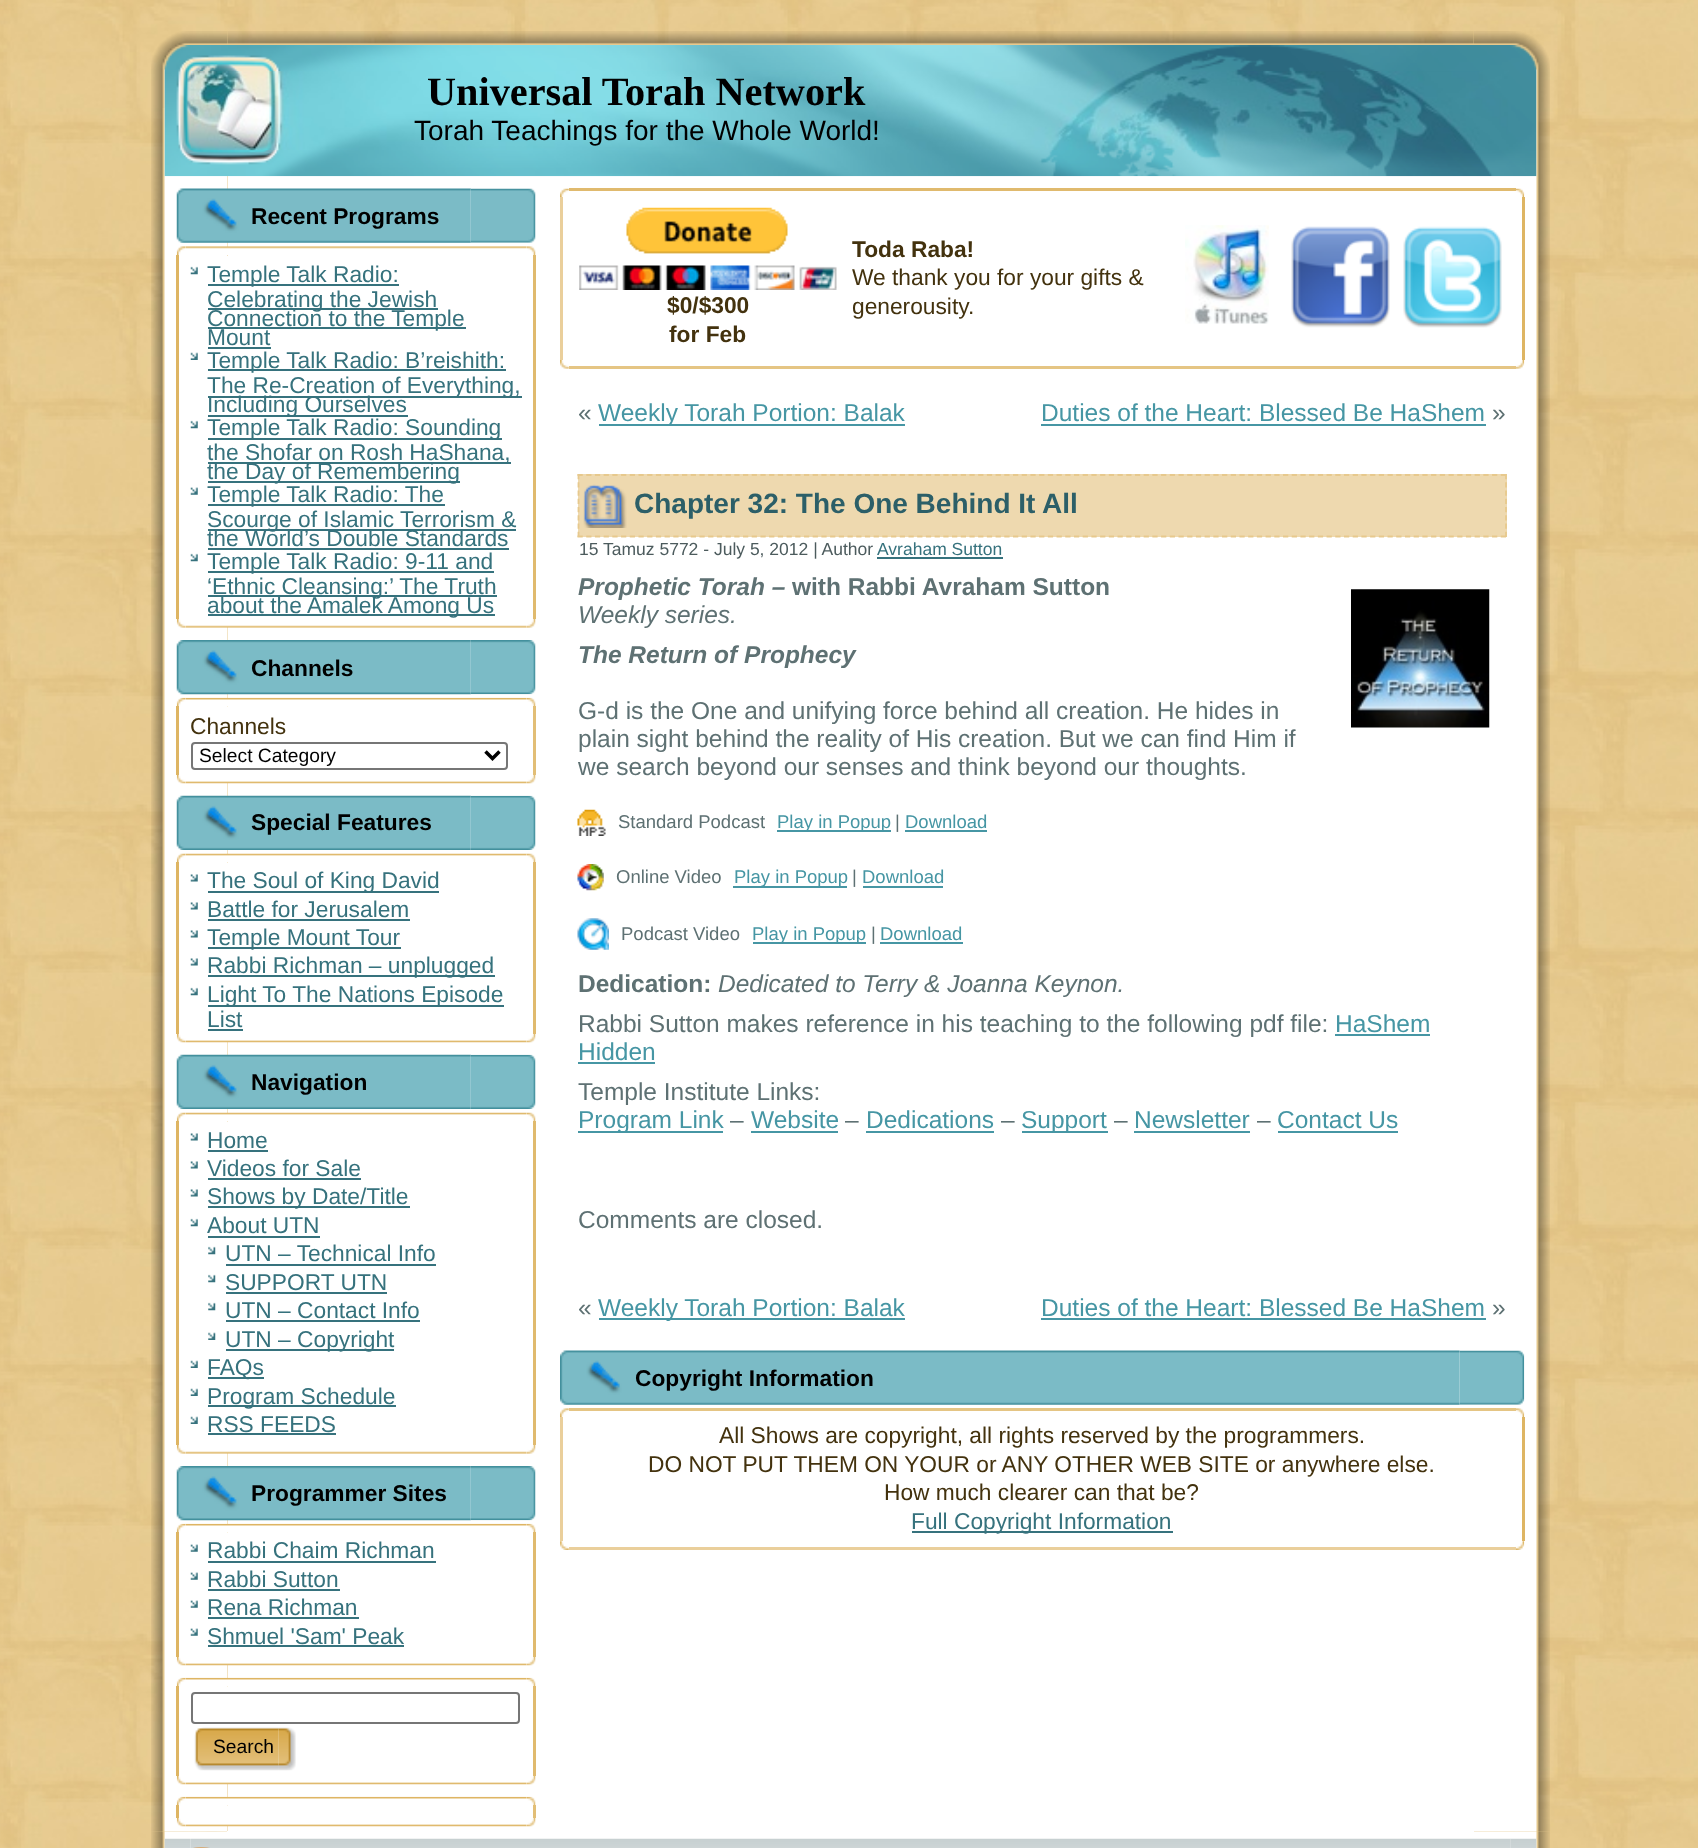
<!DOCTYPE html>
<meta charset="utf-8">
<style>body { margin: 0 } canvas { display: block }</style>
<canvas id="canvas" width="1698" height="1848"></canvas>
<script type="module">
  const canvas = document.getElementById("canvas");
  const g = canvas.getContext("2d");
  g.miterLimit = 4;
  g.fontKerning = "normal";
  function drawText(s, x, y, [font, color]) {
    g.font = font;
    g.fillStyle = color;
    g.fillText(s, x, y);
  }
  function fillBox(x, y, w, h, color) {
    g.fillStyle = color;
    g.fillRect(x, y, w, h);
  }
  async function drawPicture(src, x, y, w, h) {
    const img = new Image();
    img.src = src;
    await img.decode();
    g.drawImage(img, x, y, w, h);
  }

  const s1 = ["bold 40.25px Liberation Serif", "#000000"];
  const s2 = ["28px Liberation Sans", "#000000"];
  const s3 = ["bold 22.75px Liberation Sans", "#000000"];
  const s4 = ["22.75px Liberation Sans", "#36727D"];
  const s5 = ["22.75px Liberation Sans", "#43320E"];
  const s6 = ["19.25px Liberation Sans", "#000000"];
  const s7 = ["bold 22.75px Liberation Sans", "#43320E"];
  const s8 = ["24.5px Liberation Sans", "#5E7173"];
  const s9 = ["24.5px Liberation Sans", "#4696A4"];
  const s10 = ["bold 28px Liberation Sans", "#2C5F68"];
  const s11 = ["17.5px Liberation Sans", "#4C5B5D"];
  const s12 = ["17.5px Liberation Sans", "#36727D"];
  const s13 = ["italic bold 24.5px Liberation Sans", "#5E7173"];
  const s14 = ["bold 24.5px Liberation Sans", "#5E7173"];
  const s15 = ["italic 24.5px Liberation Sans", "#5E7173"];
  const s16 = ["18.5px Liberation Sans", "#5E7173"];
  const s17 = ["18.5px Liberation Sans", "#4696A4"];

  fillBox(0, 0, 1698, 1848, "#FFFFFF");
  await drawPicture("pic1.png", 0, 0, 1698, 1848);
  await drawPicture("pic2.png", 151, 31, 77, 77);
  await drawPicture("pic4.png", 1473, 31, 77, 77);
  await drawPicture("pic3.png", 227, 31, 1247, 14);
  await drawPicture("pic71.png", 151, 1831, 76, 17);
  fillBox(227, 1831, 1247, 8, "#FFFFFF");
  await drawPicture("pic5.png", 151, 108, 77, 1724);
  await drawPicture("pic72.png", 1474, 1831, 76, 17);
  await drawPicture("pic70.png", 1474, 108, 76, 1724);
  fillBox(228, 176, 1246, 1655, "#FFFFFF");
  await drawPicture("pic6.png", 164, 45, 1373, 132);
  await drawPicture("pic7.png", 190, 71, 1318, 79);
  drawText("Universal Torah Network", 427, 105, s1);
  drawText("Torah Teachings for the Whole World!", 414, 140, s2);
  await drawPicture("pic8.png", 176, 188, 295, 55);
  await drawPicture("pic9.png", 470, 188, 66, 55);
  drawText("Recent Programs", 251, 224, s3);
  await drawPicture("pic10.png", 176, 246, 10, 9);
  await drawPicture("pic12.png", 526, 246, 10, 9);
  await drawPicture("pic11.png", 185, 246, 342, 9);
  fillBox(176, 255, 3, 364, "#DEB563");
  fillBox(227, 256, 1, 363, "#FFFFFF");
  fillBox(533, 255, 3, 364, "#E0BA6E");
  await drawPicture("pic13.png", 190, 266, 8, 9);
  fillBox(208, 284, 191, 2, "#36727D");
  drawText("Temple Talk Radio:", 207, 282, s4);
  fillBox(208, 308, 230, 2, "#36727D");
  drawText("Celebrating the Jewish", 207, 307, s4);
  fillBox(208, 327, 258, 2, "#36727D");
  drawText("Connection to the Temple", 207, 326, s4);
  drawText("Mount", 207, 345, s4);
  fillBox(208, 347, 63, 2, "#36727D");
  await drawPicture("pic14.png", 190, 352, 8, 8);
  fillBox(208, 369, 298, 2, "#36727D");
  drawText("Temple Talk Radio: B’reishith:", 207, 368, s4);
  fillBox(208, 396, 314, 2, "#36727D");
  drawText("The Re-Creation of Everything,", 207, 393, s4);
  fillBox(208, 415, 200, 2, "#36727D");
  drawText("Including Ourselves", 207, 412, s4);
  await drawPicture("pic13.png", 190, 420, 8, 9);
  fillBox(208, 438, 294, 2, "#36727D");
  drawText("Temple Talk Radio: Sounding", 207, 435, s4);
  fillBox(208, 462, 303, 2, "#36727D");
  drawText("the Shofar on Rosh HaShana,", 207, 460, s4);
  fillBox(208, 481, 252, 2, "#36727D");
  drawText("the Day of Remembering", 207, 479, s4);
  await drawPicture("pic15.png", 190, 487, 8, 8);
  fillBox(208, 504, 237, 2, "#36727D");
  drawText("Temple Talk Radio: The", 207, 502, s4);
  fillBox(208, 529, 308, 2, "#36727D");
  drawText("Scourge of Islamic Terrorism &", 207, 527, s4);
  drawText("the World’s Double Standards", 207, 546, s4);
  fillBox(208, 548, 301, 2, "#36727D");
  await drawPicture("pic13.png", 190, 553, 8, 9);
  fillBox(208, 571, 286, 2, "#36727D");
  drawText("Temple Talk Radio: 9-11 and", 207, 569, s4);
  fillBox(208, 595, 289, 2, "#36727D");
  drawText("‘Ethnic Cleansing:’ The Truth", 207, 594, s4);
  fillBox(208, 614, 287, 2, "#36727D");
  drawText("about the Amalek Among Us", 207, 613, s4);
  await drawPicture("pic16.png", 176, 619, 10, 9);
  await drawPicture("pic18.png", 526, 619, 10, 9);
  await drawPicture("pic17.png", 185, 619, 342, 9);
  await drawPicture("pic19.png", 176, 640, 295, 55);
  await drawPicture("pic20.png", 470, 640, 66, 55);
  drawText("Channels", 251, 676, s3);
  await drawPicture("pic21.png", 176, 697, 10, 10);
  await drawPicture("pic23.png", 526, 697, 10, 10);
  await drawPicture("pic22.png", 185, 697, 342, 10);
  await drawPicture("pic24.png", 176, 774, 10, 10);
  fillBox(176, 706, 3, 69, "#DEB563");
  await drawPicture("pic26.png", 526, 774, 10, 10);
  await drawPicture("pic25.png", 185, 774, 342, 10);
  fillBox(227, 707, 1, 68, "#FFFFFF");
  fillBox(533, 706, 3, 69, "#E2BE76");
  drawText("Channels", 190, 734, s5);
  g.beginPath();
  g.roundRect(192, 743, 315, 26, 3);
  g.strokeStyle = "#767676";
  g.lineWidth = 2;
  g.stroke();
  g.beginPath();
  g.moveTo(485.5, 751.5);
  g.lineTo(492.5, 758.5);
  g.lineTo(499.5, 751.5);
  g.strokeStyle = "#000000";
  g.lineWidth = 3.5;
  g.stroke();
  drawText("Select Category", 199, 762, s6);
  await drawPicture("pic27.png", 176, 795, 295, 55);
  await drawPicture("pic28.png", 470, 795, 66, 55);
  drawText("Special Features", 251, 830, s3);
  await drawPicture("pic29.png", 176, 853, 10, 10);
  await drawPicture("pic31.png", 526, 853, 10, 10);
  await drawPicture("pic30.png", 185, 853, 342, 10);
  await drawPicture("pic24.png", 176, 1033, 10, 10);
  fillBox(176, 862, 3, 172, "#DEB563");
  await drawPicture("pic26.png", 526, 1033, 10, 10);
  await drawPicture("pic33.png", 185, 1033, 342, 10);
  fillBox(227, 863, 1, 171, "#FFFFFF");
  fillBox(533, 862, 3, 172, "#E0BA6E");
  await drawPicture("pic32.png", 190, 874, 8, 8);
  fillBox(208, 891, 231, 2, "#36727D");
  drawText("The Soul of King David", 207, 888, s4);
  await drawPicture("pic32.png", 190, 902, 8, 8);
  drawText("Battle for Jerusalem", 207, 917, s4);
  fillBox(208, 919, 202, 2, "#36727D");
  await drawPicture("pic32.png", 190, 930, 8, 8);
  fillBox(208, 947, 193, 2, "#36727D");
  drawText("Temple Mount Tour", 207, 945, s4);
  await drawPicture("pic32.png", 190, 958, 8, 8);
  fillBox(208, 975, 287, 2, "#36727D");
  drawText("Rabbi Richman – unplugged", 207, 973, s4);
  await drawPicture("pic13.png", 190, 987, 8, 9);
  fillBox(208, 1005, 296, 2, "#36727D");
  drawText("Light To The Nations Episode", 207, 1002, s4);
  drawText("List", 207, 1027, s4);
  fillBox(208, 1029, 35, 2, "#36727D");
  await drawPicture("pic34.png", 176, 1054, 295, 55);
  await drawPicture("pic28.png", 470, 1054, 66, 55);
  drawText("Navigation", 251, 1090, s3);
  await drawPicture("pic29.png", 176, 1112, 10, 10);
  await drawPicture("pic31.png", 526, 1112, 10, 10);
  await drawPicture("pic35.png", 185, 1112, 342, 10);
  fillBox(176, 1121, 3, 324, "#DEB563");
  fillBox(227, 1122, 1, 323, "#FFFFFF");
  fillBox(533, 1121, 3, 324, "#E0BA6E");
  await drawPicture("pic32.png", 190, 1133, 8, 8);
  drawText("Home", 207, 1148, s4);
  fillBox(208, 1150, 60, 2, "#36727D");
  await drawPicture("pic32.png", 190, 1161, 8, 8);
  drawText("Videos for Sale", 207, 1176, s4);
  fillBox(208, 1178, 153, 2, "#36727D");
  await drawPicture("pic32.png", 190, 1189, 8, 8);
  fillBox(208, 1206, 202, 2, "#36727D");
  drawText("Shows by Date/Title", 207, 1204, s4);
  await drawPicture("pic13.png", 190, 1218, 8, 9);
  drawText("About UTN", 207, 1233, s4);
  fillBox(208, 1236, 112, 2, "#36727D");
  await drawPicture("pic36.png", 208, 1246, 8, 9);
  drawText("UTN – Technical Info", 225, 1261, s4);
  fillBox(226, 1264, 210, 2, "#36727D");
  await drawPicture("pic36.png", 208, 1274, 8, 9);
  drawText("SUPPORT UTN", 225, 1290, s4);
  fillBox(226, 1292, 161, 2, "#36727D");
  await drawPicture("pic36.png", 208, 1302, 8, 9);
  drawText("UTN – Contact Info", 225, 1318, s4);
  fillBox(226, 1320, 194, 2, "#36727D");
  await drawPicture("pic37.png", 208, 1332, 8, 8);
  fillBox(226, 1349, 168, 2, "#36727D");
  drawText("UTN – Copyright", 225, 1347, s4);
  await drawPicture("pic14.png", 190, 1360, 8, 8);
  fillBox(208, 1377, 56, 2, "#36727D");
  drawText("FAQs", 207, 1375, s4);
  await drawPicture("pic14.png", 190, 1388, 8, 8);
  fillBox(208, 1405, 188, 2, "#36727D");
  drawText("Program Schedule", 207, 1404, s4);
  await drawPicture("pic14.png", 190, 1416, 8, 8);
  drawText("RSS FEEDS", 207, 1432, s4);
  fillBox(208, 1433, 128, 2, "#36727D");
  await drawPicture("pic16.png", 176, 1445, 10, 9);
  await drawPicture("pic18.png", 526, 1445, 10, 9);
  await drawPicture("pic17.png", 185, 1445, 342, 9);
  await drawPicture("pic38.png", 176, 1466, 295, 55);
  await drawPicture("pic20.png", 470, 1466, 66, 55);
  drawText("Programmer Sites", 251, 1501, s3);
  await drawPicture("pic21.png", 176, 1523, 10, 10);
  await drawPicture("pic23.png", 526, 1523, 10, 10);
  await drawPicture("pic39.png", 185, 1523, 342, 10);
  await drawPicture("pic24.png", 176, 1656, 10, 10);
  fillBox(176, 1532, 3, 125, "#DEB563");
  await drawPicture("pic26.png", 526, 1656, 10, 10);
  await drawPicture("pic40.png", 185, 1656, 342, 10);
  fillBox(227, 1533, 1, 124, "#FFFFFF");
  fillBox(533, 1532, 3, 125, "#E0BA6E");
  await drawPicture("pic15.png", 190, 1544, 8, 8);
  drawText("Rabbi Chaim Richman", 207, 1558, s4);
  fillBox(208, 1561, 228, 2, "#36727D");
  await drawPicture("pic15.png", 190, 1572, 8, 8);
  drawText("Rabbi Sutton", 207, 1587, s4);
  fillBox(208, 1589, 132, 2, "#36727D");
  await drawPicture("pic15.png", 190, 1600, 8, 8);
  drawText("Rena Richman", 207, 1615, s4);
  fillBox(208, 1617, 151, 2, "#36727D");
  await drawPicture("pic15.png", 190, 1628, 8, 8);
  drawText("Shmuel 'Sam' Peak", 207, 1644, s4);
  fillBox(208, 1645, 196, 2, "#36727D");
  await drawPicture("pic21.png", 176, 1677, 10, 10);
  await drawPicture("pic23.png", 526, 1677, 10, 10);
  await drawPicture("pic41.png", 185, 1677, 342, 10);
  await drawPicture("pic24.png", 176, 1775, 10, 10);
  fillBox(176, 1686, 3, 90, "#DEB563");
  await drawPicture("pic26.png", 526, 1775, 10, 10);
  await drawPicture("pic44.png", 185, 1775, 342, 10);
  fillBox(227, 1687, 1, 89, "#FFFFFF");
  fillBox(533, 1686, 3, 90, "#E0BA6E");
  g.beginPath();
  g.roundRect(192, 1693, 327, 30, 3);
  g.strokeStyle = "#767676";
  g.lineWidth = 2;
  g.stroke();
  await drawPicture("pic42.png", 194, 1727, 85, 44);
  await drawPicture("pic43.png", 278, 1727, 18, 44);
  drawText("Search", 213, 1753, s6);
  await drawPicture("pic21.png", 176, 1796, 10, 10);
  await drawPicture("pic23.png", 526, 1796, 10, 10);
  await drawPicture("pic45.png", 185, 1796, 342, 10);
  await drawPicture("pic24.png", 176, 1817, 10, 10);
  fillBox(176, 1805, 3, 13, "#DEB563");
  await drawPicture("pic26.png", 526, 1817, 10, 10);
  await drawPicture("pic46.png", 185, 1817, 342, 10);
  fillBox(227, 1806, 1, 12, "#FFFFFF");
  fillBox(533, 1805, 3, 13, "#E2BE76");
  await drawPicture("pic47.png", 560, 188, 9, 10);
  await drawPicture("pic48.png", 1515, 188, 10, 10);
  fillBox(569, 188, 947, 3, "#E0BA6E");
  fillBox(560, 197, 3, 163, "#EACF9B");
  await drawPicture("pic49.png", 579, 207, 258, 83);
  drawText("$0/$300", 667, 313, s7);
  drawText("for Feb", 669, 342, s7);
  drawText("Toda Raba!", 852, 257, s7);
  drawText("We thank you for your gifts &", 852, 285, s5);
  drawText("generousity.", 852, 314, s5);
  await drawPicture("pic50.png", 1185, 225, 84, 99);
  await drawPicture("pic51.png", 1291, 226, 99, 102);
  await drawPicture("pic52.png", 1403, 226, 99, 102);
  fillBox(1522, 197, 3, 163, "#DEB563");
  await drawPicture("pic53.png", 560, 360, 9, 9);
  await drawPicture("pic54.png", 1515, 360, 10, 9);
  fillBox(569, 366, 947, 3, "#E5C584");
  drawText("«", 578, 421, s8);
  fillBox(599, 424, 306, 2, "#4696A4");
  drawText("Weekly Torah Portion: Balak", 598, 421, s9);
  drawText("Duties of the Heart: Blessed Be HaShem", 1041, 421, s9);
  fillBox(1041, 424, 445, 2, "#4696A4");
  drawText("»", 1492, 421, s8);
  fillBox(578, 474, 929, 63, "#EED9AF");
  g.beginPath();
  g.moveTo(577.5, 475);
  g.lineTo(1507, 475);
  g.strokeStyle = "#E7C98D";
  g.lineWidth = 1.8;
  g.setLineDash([5.25, 3.46]);
  g.stroke();
  g.beginPath();
  g.moveTo(1506, 474);
  g.lineTo(1506, 537);
  g.setLineDash([5.25, 2.99]);
  g.stroke();
  g.beginPath();
  g.moveTo(577.5, 536.5);
  g.lineTo(1507, 536.5);
  g.setLineDash([5.25, 3.46]);
  g.stroke();
  g.beginPath();
  g.moveTo(578.5, 474);
  g.lineTo(578.5, 537);
  g.setLineDash([5.25, 2.99]);
  g.stroke();
  await drawPicture("pic55.png", 583, 484, 44, 44);
  drawText("Chapter 32: The One Behind It All", 634, 513, s10);
  drawText("‍‍15 Tamuz 5772 - July 5, 2012 | Author", 579, 555, s11);
  drawText("Avraham Sutton", 877, 555, s12);
  fillBox(877, 557, 126, 2, "#36727D");
  drawText("Prophetic Torah –", 578, 595, s13);
  drawText("with Rabbi Avraham Sutton", 792, 595, s14);
  drawText("Weekly series.", 578, 623, s15);
  await drawPicture("pic56.png", 1351, 589, 139, 139);
  drawText("The Return of Prophecy", 578, 663, s13);
  drawText("G-d is the One and unifying force behind all creation. He hides in", 578, 719, s8);
  drawText("plain sight behind the reality of His creation. But we can find Him if", 578, 747, s8);
  drawText("we search beyond our senses and think beyond our thoughts.", 578, 775, s8);
  await drawPicture("pic57.png", 577, 809, 29, 27);
  drawText("Standard Podcast", 618, 828, s16);
  fillBox(777, 830, 114, 2, "#4696A4");
  drawText("Play in Popup", 777, 828, s17);
  drawText("|", 895, 828, s16);
  drawText("Download", 905, 828, s17);
  fillBox(905, 830, 82, 2, "#4696A4");
  await drawPicture("pic58.png", 577, 864, 27, 27);
  drawText("Online Video", 616, 883, s16);
  fillBox(733, 886, 114, 2, "#4696A4");
  drawText("Play in Popup", 734, 883, s17);
  drawText("|", 852, 883, s16);
  drawText("Download", 862, 883, s17);
  fillBox(863, 886, 80, 2, "#4696A4");
  await drawPicture("pic59.png", 577, 918, 32, 32);
  drawText("Podcast Video", 621, 940, s16);
  fillBox(753, 942, 113, 2, "#4696A4");
  drawText("Play in Popup", 752, 940, s17);
  drawText("|", 871, 940, s16);
  drawText("Download", 880, 940, s17);
  fillBox(880, 942, 83, 2, "#4696A4");
  drawText("Dedication:", 578, 992, s14);
  drawText("Dedicated to Terry & Joanna Keynon.", 718, 992, s15);
  drawText("Rabbi Sutton makes reference in his teaching to the following pdf file:", 578, 1032, s8);
  drawText("HaShem", 1335, 1032, s9);
  fillBox(1335, 1034, 95, 2, "#4696A4");
  drawText("Hidden", 578, 1060, s9);
  fillBox(578, 1062, 77, 2, "#4696A4");
  drawText("Temple Institute Links:", 578, 1100, s8);
  fillBox(578, 1131, 145, 2, "#4696A4");
  drawText("Program Link", 578, 1128, s9);
  drawText("–", 730, 1128, s8);
  drawText("Website", 751, 1128, s9);
  fillBox(751, 1131, 87, 2, "#4696A4");
  drawText("–", 845, 1128, s8);
  drawText("Dedications", 866, 1128, s9);
  fillBox(866, 1131, 128, 2, "#4696A4");
  drawText("–", 1001, 1128, s8);
  fillBox(1022, 1131, 86, 2, "#4696A4");
  drawText("Support", 1021, 1128, s9);
  drawText("–", 1114, 1128, s8);
  drawText("Newsletter", 1134, 1128, s9);
  fillBox(1134, 1131, 116, 2, "#4696A4");
  drawText("–", 1257, 1128, s8);
  drawText("Contact Us", 1277, 1128, s9);
  fillBox(1278, 1131, 120, 2, "#4696A4");
  drawText("Comments are closed.", 578, 1228, s8);
  drawText("«", 578, 1316, s8);
  fillBox(599, 1318, 306, 2, "#4696A4");
  drawText("Weekly Torah Portion: Balak", 598, 1316, s9);
  drawText("Duties of the Heart: Blessed Be HaShem", 1041, 1316, s9);
  fillBox(1041, 1318, 445, 2, "#4696A4");
  drawText("»", 1492, 1316, s8);
  await drawPicture("pic60.png", 560, 1350, 900, 55);
  await drawPicture("pic61.png", 1459, 1350, 66, 55);
  drawText("Copyright Information", 635, 1386, s3);
  await drawPicture("pic62.png", 560, 1408, 9, 9);
  await drawPicture("pic63.png", 1515, 1408, 10, 9);
  fillBox(569, 1408, 947, 3, "#E5C584");
  fillBox(560, 1417, 3, 124, "#EACF9B");
  drawText("All Shows are copyright, all rights reserved by the programmers.", 719, 1443, s5);
  drawText("DO NOT PUT THEM ON YOUR or ANY OTHER WEB SITE or anywhere else.", 648, 1472, s5);
  drawText("How much clearer can that be?", 884, 1500, s5);
  fillBox(912, 1531, 261, 2, "#36727D");
  drawText("Full Copyright Information", 911, 1529, s4);
  fillBox(1522, 1417, 3, 124, "#DEB563");
  await drawPicture("pic64.png", 560, 1541, 9, 9);
  await drawPicture("pic65.png", 1515, 1541, 10, 9);
  fillBox(569, 1547, 947, 3, "#EACF9B");
  await drawPicture("pic66.png", 164, 1838, 27, 10);
  await drawPicture("pic67.png", 191, 1838, 1320, 10);
  await drawPicture("pic68.png", 1510, 1838, 27, 10);
  await drawPicture("pic69.png", 193, 1847, 17, 1);
</script>
